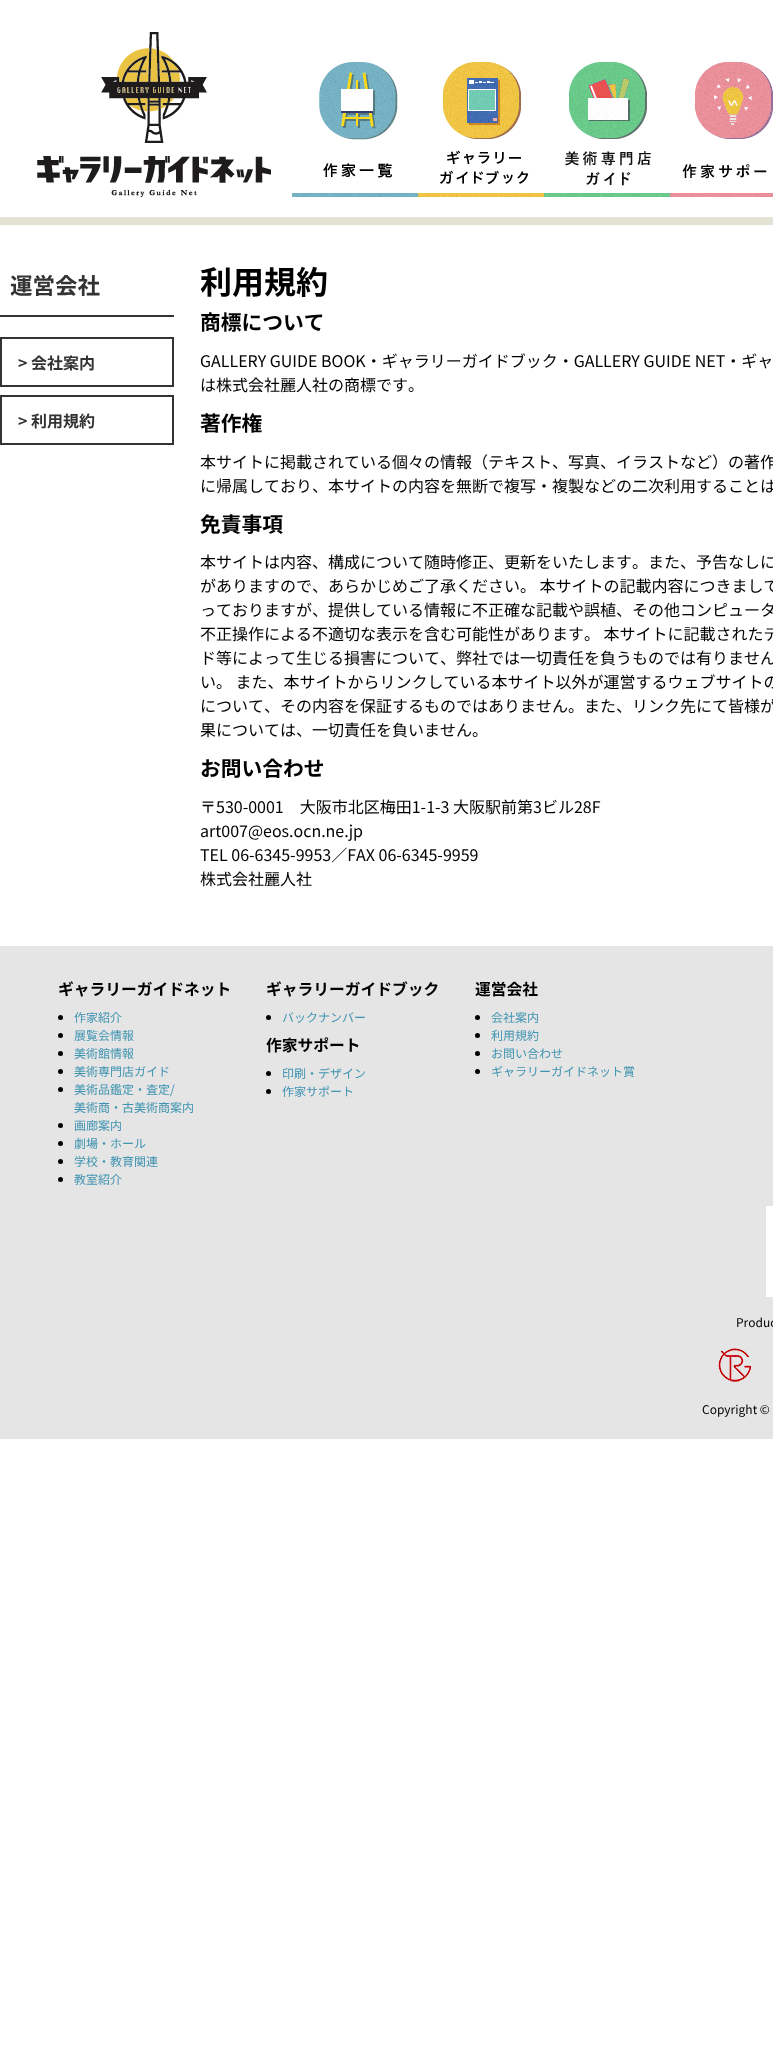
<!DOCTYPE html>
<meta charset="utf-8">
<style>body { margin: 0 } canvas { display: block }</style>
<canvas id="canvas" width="773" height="2069"></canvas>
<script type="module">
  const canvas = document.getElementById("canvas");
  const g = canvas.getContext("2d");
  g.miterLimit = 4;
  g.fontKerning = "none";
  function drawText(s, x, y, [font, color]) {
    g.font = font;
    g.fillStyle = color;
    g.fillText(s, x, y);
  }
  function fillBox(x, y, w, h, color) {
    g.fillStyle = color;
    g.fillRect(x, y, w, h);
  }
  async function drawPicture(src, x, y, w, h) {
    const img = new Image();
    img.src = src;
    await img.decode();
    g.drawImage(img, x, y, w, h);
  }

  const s1 = ["bold 22.5px Noto Sans JP", "#333333"];
  const s2 = ["bold 16px Noto Sans JP", "#333333"];
  const s3 = ["bold 32px Noto Sans JP", "#000000"];
  const s4 = ["bold 20.75px Noto Sans JP", "#000000"];
  const s5 = ["16px Noto Sans JP", "#000000"];
  const s6 = ["bold 15.75px Noto Sans JP", "#000000"];
  const s7 = ["12px Noto Sans JP", "#4094B1"];
  const s8 = ["12px Noto Sans JP", "#000000"];

  fillBox(0, 0, 773, 2069, "#FFFFFF");
  await drawPicture("pic1.png", 37, 32, 234, 165);
  await drawPicture("pic2.png", 292, 62, 126, 135);
  await drawPicture("pic3.png", 418, 62, 126, 135);
  await drawPicture("pic4.png", 544, 62, 126, 135);
  await drawPicture("pic5.png", 670, 62, 103, 135);
  fillBox(0, 217, 773, 8, "#E2E2D5");
  fillBox(0, 315, 174, 2, "#333333");
  drawText("運営会社", 10, 294, s1);
  g.strokeStyle = "#333333";
  g.lineWidth = 2;
  g.strokeRect(1, 338, 172, 48);
  drawText("> 会社案内", 18, 369, s2);
  g.strokeRect(1, 396, 172, 48);
  drawText("> 利用規約", 18, 427, s2);
  drawText("利用規約", 200, 294, s3);
  drawText("商標について", 200, 330, s4);
  drawText("GALLERY GUIDE BOOK・ギャラリーガイドブック・GALLERY GUIDE NET・ギャ", 200, 367, s5);
  drawText("は株式会社麗人社の商標です。", 200, 391, s5);
  drawText("著作権", 200, 431, s4);
  drawText("本サイトに掲載されている個々の情報（テキスト、写真、イラストなど）の著作", 200, 468, s5);
  drawText("に帰属しており、本サイトの内容を無断で複写・複製などの二次利用することは", 200, 492, s5);
  drawText("免責事項", 200, 532, s4);
  drawText("本サイトは内容、構成について随時修正、更新をいたします。また、予告なしに", 200, 568, s5);
  drawText("がありますので、あらかじめご了承ください。 本サイトの記載内容につきまして", 200, 592, s5);
  drawText("っておりますが、提供している情報に不正確な記載や誤植、その他コンピュータ", 200, 616, s5);
  drawText("不正操作による不適切な表示を含む可能性があります。 本サイトに記載されたデ", 200, 640, s5);
  drawText("ド等によって生じる損害について、弊社では一切責任を負うものでは有りません", 200, 664, s5);
  drawText("い。 また、本サイトからリンクしている本サイト以外が運営するウェブサイトの", 200, 688, s5);
  drawText("について、その内容を保証するものではありません。また、リンク先にて皆様が", 200, 712, s5);
  drawText("果については、一切責任を負いません。", 200, 736, s5);
  drawText("お問い合わせ", 200, 776, s4);
  drawText("〒530-0001　大阪市北区梅田1-1-3 大阪駅前第3ビル28F", 200, 813, s5);
  drawText("art007@eos.ocn.ne.jp", 200, 837, s5);
  drawText("TEL 06-6345-9953／FAX 06-6345-9959", 200, 861, s5);
  drawText("株式会社麗人社", 200, 885, s5);
  fillBox(0, 946, 773, 493, "#E5E5E5");
  drawText("ギャラリーガイドネット", 58, 995, s6);
  g.beginPath();
  g.arc(60.5, 1017.5, 2.5, 0, Math.PI * 2);
  g.fill();
  drawText("作家紹介", 74, 1022, s7);
  g.fillStyle = "#000000";
  g.beginPath();
  g.arc(60.5, 1035.5, 2.5, 0, Math.PI * 2);
  g.fill();
  drawText("展覧会情報", 74, 1040, s7);
  g.fillStyle = "#000000";
  g.beginPath();
  g.arc(60.5, 1053.5, 2.5, 0, Math.PI * 2);
  g.fill();
  drawText("美術館情報", 74, 1058, s7);
  g.fillStyle = "#000000";
  g.beginPath();
  g.arc(60.5, 1071.5, 2.5, 0, Math.PI * 2);
  g.fill();
  drawText("美術専門店ガイド", 74, 1076, s7);
  g.fillStyle = "#000000";
  g.beginPath();
  g.arc(60.5, 1089.5, 2.5, 0, Math.PI * 2);
  g.fill();
  drawText("美術品鑑定・査定/", 74, 1094, s7);
  drawText("美術商・古美術商案内", 74, 1112, s7);
  g.fillStyle = "#000000";
  g.beginPath();
  g.arc(60.5, 1125.5, 2.5, 0, Math.PI * 2);
  g.fill();
  drawText("画廊案内", 74, 1130, s7);
  g.fillStyle = "#000000";
  g.beginPath();
  g.arc(60.5, 1143.5, 2.5, 0, Math.PI * 2);
  g.fill();
  drawText("劇場・ホール", 74, 1148, s7);
  g.fillStyle = "#000000";
  g.beginPath();
  g.arc(60.5, 1161.5, 2.5, 0, Math.PI * 2);
  g.fill();
  drawText("学校・教育関連", 74, 1166, s7);
  g.fillStyle = "#000000";
  g.beginPath();
  g.arc(60.5, 1179.5, 2.5, 0, Math.PI * 2);
  g.fill();
  drawText("教室紹介", 74, 1184, s7);
  drawText("ギャラリーガイドブック", 266, 995, s6);
  g.beginPath();
  g.arc(268.5, 1017.5, 2.5, 0, Math.PI * 2);
  g.fill();
  drawText("バックナンバー", 282, 1022, s7);
  drawText("作家サポート", 266, 1051, s6);
  g.beginPath();
  g.arc(268.5, 1073.5, 2.5, 0, Math.PI * 2);
  g.fill();
  drawText("印刷・デザイン", 282, 1078, s7);
  g.fillStyle = "#000000";
  g.beginPath();
  g.arc(268.5, 1091.5, 2.5, 0, Math.PI * 2);
  g.fill();
  drawText("作家サポート", 282, 1096, s7);
  drawText("運営会社", 475, 995, s6);
  g.beginPath();
  g.arc(477.5, 1017.5, 2.5, 0, Math.PI * 2);
  g.fill();
  drawText("会社案内", 491, 1022, s7);
  g.fillStyle = "#000000";
  g.beginPath();
  g.arc(477.5, 1035.5, 2.5, 0, Math.PI * 2);
  g.fill();
  drawText("利用規約", 491, 1040, s7);
  g.fillStyle = "#000000";
  g.beginPath();
  g.arc(477.5, 1053.5, 2.5, 0, Math.PI * 2);
  g.fill();
  drawText("お問い合わせ", 491, 1058, s7);
  g.fillStyle = "#000000";
  g.beginPath();
  g.arc(477.5, 1071.5, 2.5, 0, Math.PI * 2);
  g.fill();
  drawText("ギャラリーガイドネット賞", 491, 1076, s7);
  fillBox(766, 1206, 7, 91, "#FFFFFF");
  drawText("Produc", 736, 1327, s8);
  await drawPicture("pic6.png", 718, 1348, 34, 34);
  drawText("Copyright ©", 702, 1414, s8);
</script>
